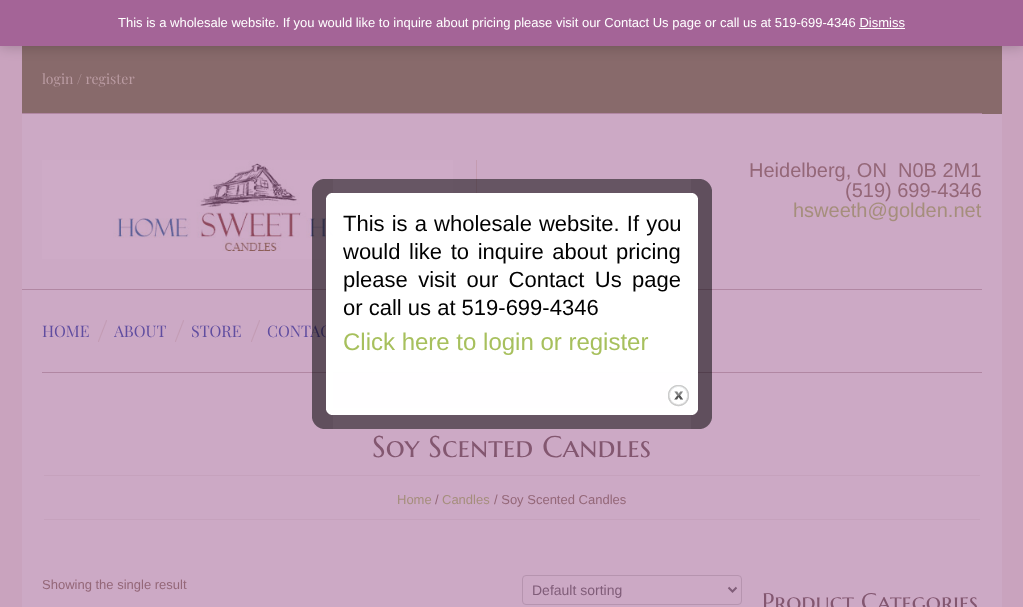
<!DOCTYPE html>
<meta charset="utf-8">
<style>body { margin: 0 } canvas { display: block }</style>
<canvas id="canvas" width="1023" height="607"></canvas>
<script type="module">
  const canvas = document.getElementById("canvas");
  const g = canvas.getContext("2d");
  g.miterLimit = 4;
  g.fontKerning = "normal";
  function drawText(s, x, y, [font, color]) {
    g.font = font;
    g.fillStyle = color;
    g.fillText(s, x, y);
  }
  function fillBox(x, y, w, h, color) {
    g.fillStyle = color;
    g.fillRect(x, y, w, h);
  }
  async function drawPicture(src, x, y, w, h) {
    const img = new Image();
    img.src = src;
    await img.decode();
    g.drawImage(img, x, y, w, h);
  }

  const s1 = ["13px Liberation Sans", "#FFFFFF"];
  const s2 = ["14px Playfair Display", "#BA9BA2"];
  const s3 = ["20px Liberation Sans", "#946778"];
  const s4 = ["20px Liberation Sans", "#A58E7C"];
  const s5 = ["16px Playfair Display", "#604DA0"];
  const s6 = ["30px Marcellus SC", "#835770"];
  const s7 = ["13px Liberation Sans", "#A58E7C"];
  const s8 = ["13px Liberation Sans", "#946778"];
  const s9 = ["14px Liberation Sans", "#805D79"];
  const s10 = ["24px Marcellus SC", "#835770"];
  const s11 = ["22px Liberation Sans", "#010101"];
  const s12 = ["24px Liberation Sans", "#A7C05D"];

  fillBox(0, 0, 1023, 607, "#C9A3BE");
  fillBox(22, 46, 980, 68, "#886A6B");
  g.fillStyle = "rgba(0, 0, 0, 0.2)";
  g.filter = "blur(6.5px)";
  g.beginPath();
  g.rect(0, 1, 1023, 46);
  g.fill();
  g.filter = "none";
  fillBox(0, 0, 1023, 46, "#A46497");
  drawText("This is a wholesale website. If you would like to inquire about pricing please visit our Contact Us page or call us at 519-699-4346 Dismiss", 118, 27, s1);
  fillBox(859, 28, 46, 1, "#FFFFFF");
  fillBox(22, 114, 980, 493, "#CCA9C5");
  fillBox(22, 113, 960, 1, "#B187A3");
  drawText("login / register", 42, 84, s2);
  fillBox(22, 289, 960, 1, "#B187A3");
  fillBox(476, 160, 1, 33, "#C49CB1");
  await drawPicture("pic1.png", 42, 160, 411, 99);
  drawText("Heidelberg, ON  N0B 2M1", 749, 177, s3);
  drawText("(519) 699-4346", 845, 197, s3);
  drawText("hsweeth@golden.net", 793, 217, s4);
  drawText("HOME", 42, 337, s5);
  await drawPicture("pic2.png", 98, 320, 9, 22);
  drawText("ABOUT", 114, 337, s5);
  await drawPicture("pic2.png", 175, 320, 9, 22);
  drawText("STORE", 191, 337, s5);
  await drawPicture("pic2.png", 251, 320, 9, 22);
  drawText("CONTAC", 267, 337, s5);
  fillBox(42, 372, 940, 1, "#B187A3");
  drawText("Soy Scented Candles", 372, 457, s6);
  fillBox(44, 475, 936, 1, "#C6A2BD");
  fillBox(44, 519, 936, 1, "#C6A2BD");
  drawText("Home", 397, 504, s7);
  drawText("/", 435, 504, s8);
  drawText("Candles", 442, 504, s7);
  drawText("/ Soy Scented Candles", 494, 504, s8);
  drawText("Showing the single result", 42, 589, s8);
  g.beginPath();
  g.roundRect(522.5, 575.5, 219, 29, 3.5);
  g.strokeStyle = "#B694AF";
  g.stroke();
  g.beginPath();
  g.moveTo(728.5, 587.5);
  g.lineTo(732.5, 591.5);
  g.lineTo(736.5, 587.5);
  g.strokeStyle = "#805D79";
  g.lineWidth = 2;
  g.stroke();
  drawText("Default sorting", 532, 595, s9);
  drawText("Product Categories", 762, 610, s10);
  await drawPicture("pic3.png", 312, 179, 21, 21);
  await drawPicture("pic4.png", 333, 179, 358, 21);
  await drawPicture("pic5.png", 691, 179, 21, 21);
  await drawPicture("pic6.png", 312, 200, 21, 208);
  fillBox(333, 372, 358, 36, "rgba(255, 255, 255, 0.99)");
  fillBox(333, 200, 358, 172, "#FFFFFF");
  g.wordSpacing = "1px";
  drawText("This is a wholesale website. If you", 343, 231, s11);
  g.wordSpacing = "2.5px";
  drawText("would like to inquire about pricing", 343, 259, s11);
  g.wordSpacing = "4.25px";
  drawText("please visit our Contact Us page", 343, 287, s11);
  g.wordSpacing = "0px";
  drawText("or call us at 519-699-4346", 343, 315, s11);
  drawText("Click here to login or register", 343, 350, s12);
  await drawPicture("pic7.png", 668, 385, 21, 22);
  await drawPicture("pic8.png", 691, 200, 21, 208);
  await drawPicture("pic9.png", 312, 408, 21, 21);
  await drawPicture("pic10.png", 333, 408, 358, 21);
  await drawPicture("pic11.png", 691, 408, 21, 21);
</script>
